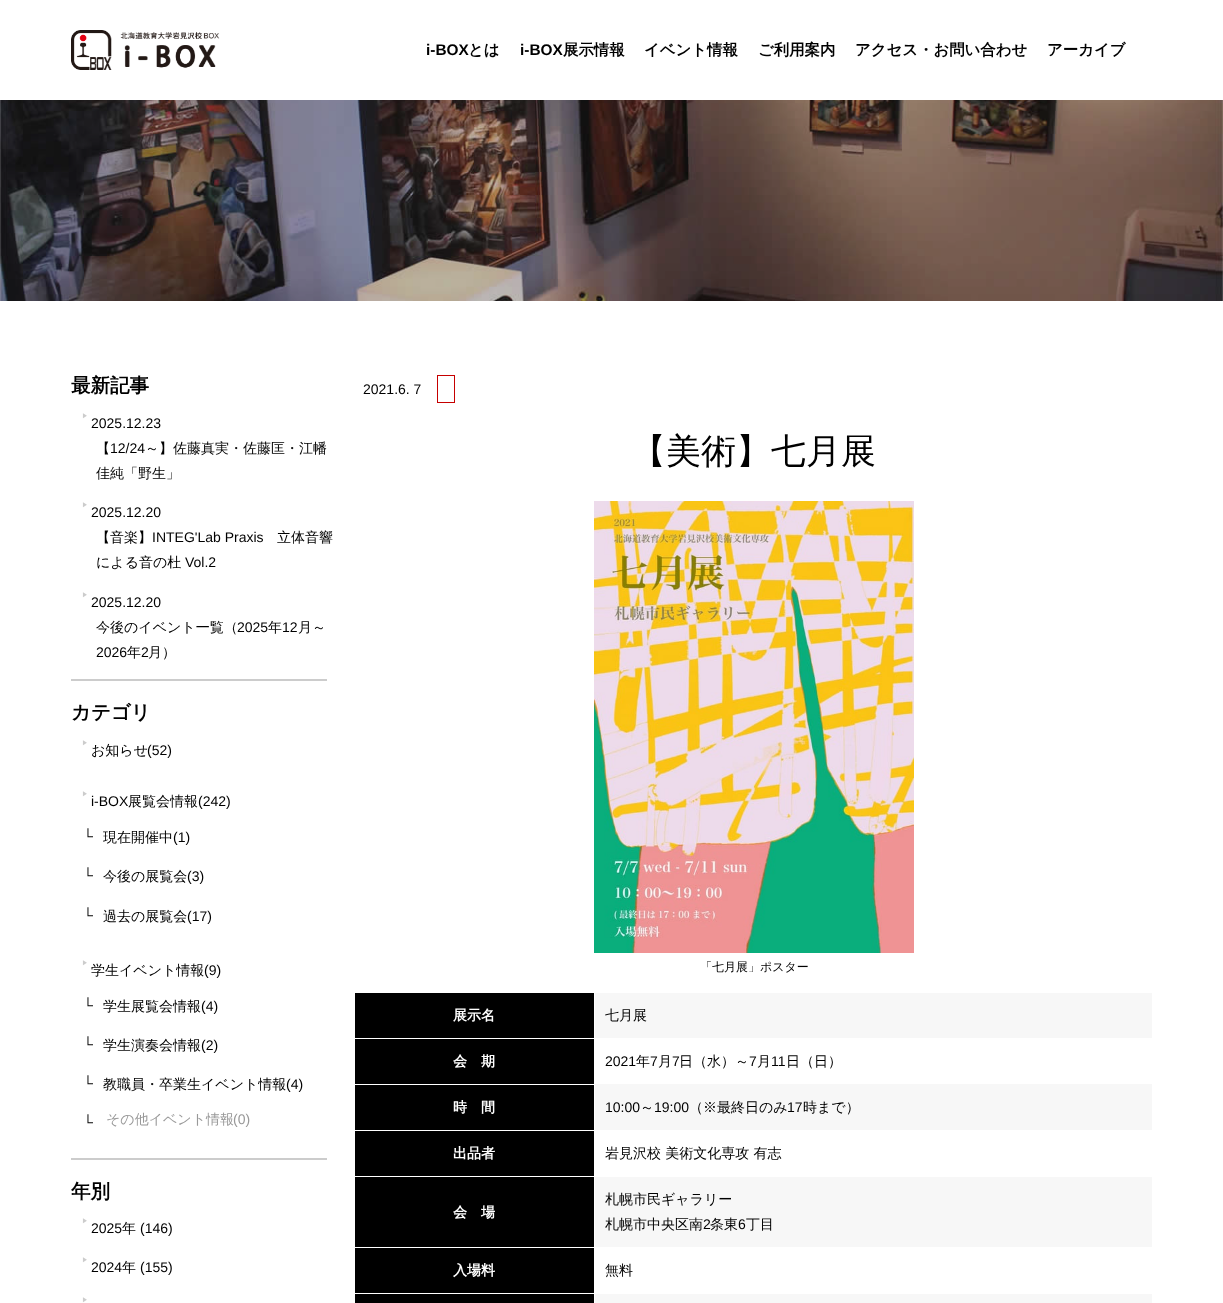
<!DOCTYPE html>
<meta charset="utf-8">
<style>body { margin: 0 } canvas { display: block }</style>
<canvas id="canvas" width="1223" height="1303"></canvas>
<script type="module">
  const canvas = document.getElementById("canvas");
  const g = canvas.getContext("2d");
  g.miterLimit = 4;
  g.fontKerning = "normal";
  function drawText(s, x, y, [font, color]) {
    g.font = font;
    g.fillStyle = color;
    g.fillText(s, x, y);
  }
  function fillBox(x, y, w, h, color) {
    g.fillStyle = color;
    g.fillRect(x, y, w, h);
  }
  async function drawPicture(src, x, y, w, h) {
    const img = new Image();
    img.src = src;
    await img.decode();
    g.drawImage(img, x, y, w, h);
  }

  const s1 = ["bold 15.4px Liberation Sans", "#000000"];
  const s2 = ["bold 15.4px WenQuanYi Zen Hei", "#000000"];
  const s3 = ["bold 19.5px WenQuanYi Zen Hei", "#000000"];
  const s4 = ["500 6px WenQuanYi Zen Hei", "#CCCCCC"];
  const s5 = ["14px Liberation Sans", "#000000"];
  const s6 = ["500 14px WenQuanYi Zen Hei", "#000000"];
  const s7 = ["500 14px WenQuanYi Zen Hei", "#999999"];
  const s8 = ["14px Liberation Sans", "#999999"];
  const s9 = ["500 35px WenQuanYi Zen Hei", "#000000"];
  const s10 = ["500 12px WenQuanYi Zen Hei", "#000000"];
  const s11 = ["bold 14px WenQuanYi Zen Hei", "#FFFFFF"];

  fillBox(0, 0, 1223, 1303, "#FFFFFF");
  await drawPicture("pic1.png", 71, 30, 149, 40);
  drawText("i-BOX", 426, 55, s1);
  drawText("とは", 468, 55, s2);
  drawText("i-BOX", 520, 55, s1);
  drawText("展示情報", 563, 55, s2);
  drawText("イベント情報", 644, 55, s2);
  drawText("ご利用案内", 758, 55, s2);
  drawText("アクセス・お問い合わせ", 855, 55, s2);
  drawText("アーカイブ", 1047, 55, s2);
  await drawPicture("pic2.png", 0, 100, 1223, 201);
  drawText("最新記事", 71, 392, s3);
  fillBox(71, 679, 256, 2, "#CCCCCC");
  drawText("▶", 82, 418, s4);
  drawText("2025.12.23", 91, 428, s5);
  drawText("【", 96, 453, s6);
  drawText("12/24", 110, 453, s5);
  drawText("～】佐藤真実・佐藤匡・江幡", 145, 453, s6);
  drawText("佳純「野生」", 96, 478, s6);
  drawText("▶", 82, 507, s4);
  drawText("2025.12.20", 91, 517, s5);
  drawText("【音楽】", 96, 542, s6);
  drawText("INTEG'Lab Praxis", 152, 542, s5);
  drawText("立体音響", 277, 542, s6);
  drawText("による音の杜", 96, 567, s6);
  drawText("Vol.2", 185, 567, s5);
  drawText("▶", 82, 597, s4);
  drawText("2025.12.20", 91, 607, s5);
  drawText("今後のイベント一覧（", 96, 632, s6);
  drawText("2025", 237, 632, s5);
  drawText("年", 268, 632, s6);
  drawText("12", 282, 632, s5);
  drawText("月～", 298, 632, s6);
  drawText("2026", 96, 657, s5);
  drawText("年", 127, 657, s6);
  drawText("2", 141, 657, s5);
  drawText("月）", 148, 657, s6);
  drawText("カテゴリ", 71, 719, s3);
  fillBox(71, 1158, 256, 2, "#CCCCCC");
  drawText("▶", 82, 745, s4);
  drawText("お知らせ", 91, 755, s6);
  drawText("(52)", 147, 755, s5);
  drawText("▶", 82, 796, s4);
  drawText("i-BOX", 91, 806, s5);
  drawText("展覧会情報", 128, 806, s6);
  drawText("(242)", 198, 806, s5);
  drawText("└", 83, 841, s5);
  drawText("現在開催中", 103, 842, s6);
  drawText("(1)", 173, 842, s5);
  drawText("└", 83, 880, s5);
  drawText("今後の展覧会", 103, 881, s6);
  drawText("(3)", 187, 881, s5);
  drawText("└", 83, 920, s5);
  drawText("過去の展覧会", 103, 921, s6);
  drawText("(17)", 187, 921, s5);
  drawText("▶", 82, 965, s4);
  drawText("学生イベント情報", 91, 975, s6);
  drawText("(9)", 204, 975, s5);
  drawText("└", 83, 1010, s5);
  drawText("学生展覧会情報", 103, 1011, s6);
  drawText("(4)", 201, 1011, s5);
  drawText("└", 83, 1049, s5);
  drawText("学生演奏会情報", 103, 1050, s6);
  drawText("(2)", 201, 1050, s5);
  drawText("└", 83, 1088, s5);
  drawText("教職員・卒業生イベント情報", 103, 1089, s6);
  drawText("(4)", 286, 1089, s5);
  drawText("└", 83, 1127, s5);
  drawText("その他イベント情報", 106, 1124, s7);
  drawText("(0)", 233, 1124, s8);
  drawText("年別", 71, 1198, s3);
  drawText("▶", 82, 1223, s4);
  drawText("2025", 91, 1233, s5);
  drawText("年", 122, 1233, s6);
  drawText("(146)", 140, 1233, s5);
  drawText("▶", 82, 1262, s4);
  drawText("2024", 91, 1272, s5);
  drawText("年", 122, 1272, s6);
  drawText("(155)", 140, 1272, s5);
  drawText("▶", 82, 1302, s4);
  drawText("2021.6. 7", 363, 394, s5);
  g.strokeStyle = "#C60000";
  g.strokeRect(437.5, 375.5, 17, 27);
  drawText("【美術】七月展", 631, 463, s9);
  await drawPicture("pic3.png", 594, 501, 320, 452);
  drawText("「七月展」ポスター", 700, 971, s10);
  fillBox(595, 993, 557, 45, "#F7F7F7");
  fillBox(355, 993, 239, 45, "#000000");
  drawText("展示名", 453, 1020, s11);
  drawText("七月展", 605, 1020, s6);
  fillBox(355, 1039, 239, 45, "#000000");
  drawText("会　期", 453, 1066, s11);
  drawText("2021", 605, 1066, s5);
  drawText("年", 636, 1066, s6);
  drawText("7", 650, 1066, s5);
  drawText("月", 658, 1066, s6);
  drawText("7", 672, 1066, s5);
  drawText("日（水）～", 679, 1066, s6);
  drawText("7", 749, 1066, s5);
  drawText("月", 757, 1066, s6);
  drawText("11", 771, 1066, s5);
  drawText("日（日）", 786, 1066, s6);
  fillBox(595, 1084, 557, 46, "#F7F7F7");
  fillBox(355, 1085, 239, 45, "#000000");
  drawText("時　間", 453, 1112, s11);
  drawText("10:00", 605, 1112, s5);
  drawText("～", 640, 1112, s6);
  drawText("19:00", 654, 1112, s5);
  drawText("（※最終日のみ", 689, 1112, s6);
  drawText("17", 787, 1112, s5);
  drawText("時まで）", 803, 1112, s6);
  fillBox(355, 1131, 239, 45, "#000000");
  drawText("出品者", 453, 1158, s11);
  drawText("岩見沢校 美術文化専攻 有志", 605, 1158, s6);
  fillBox(595, 1177, 557, 70, "#F7F7F7");
  fillBox(355, 1177, 239, 70, "#000000");
  drawText("会　場", 453, 1217, s11);
  drawText("札幌市民ギャラリー", 605, 1204, s6);
  drawText("札幌市中央区南", 605, 1229, s6);
  drawText("2", 703, 1229, s5);
  drawText("条東", 710, 1229, s6);
  drawText("6", 738, 1229, s5);
  drawText("丁目", 746, 1229, s6);
  fillBox(355, 1248, 239, 45, "#000000");
  drawText("入場料", 453, 1275, s11);
  drawText("無料", 605, 1275, s6);
  fillBox(595, 1294, 557, 9, "#F7F7F7");
  fillBox(355, 1294, 239, 9, "#000000");
</script>
